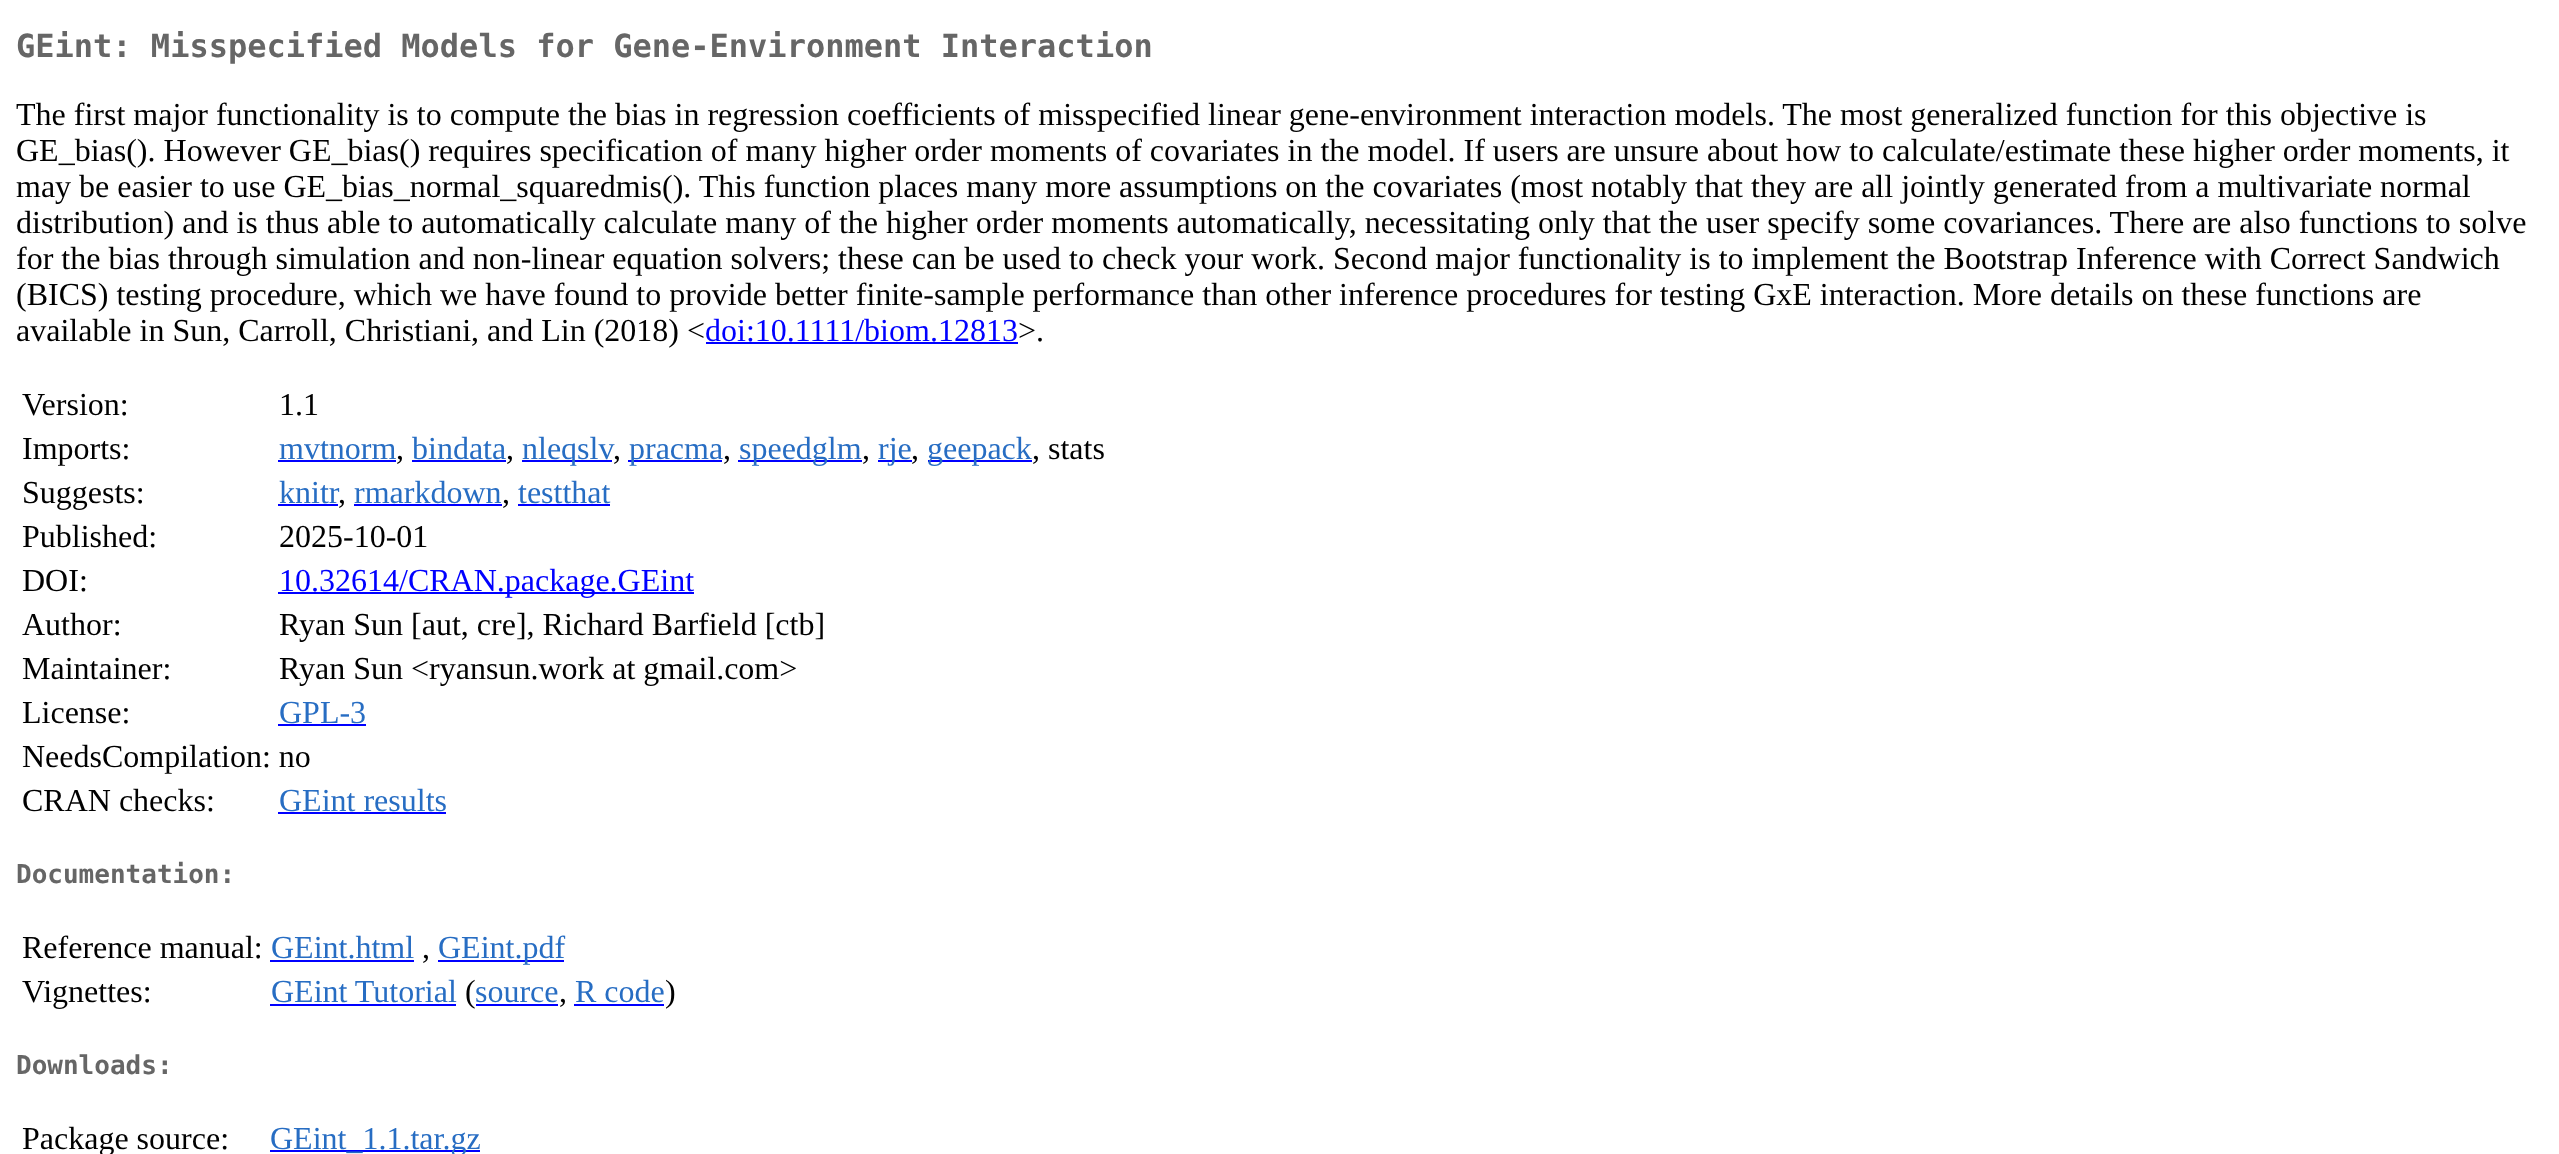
<!DOCTYPE html>
<meta charset="utf-8">
<style>body { margin: 0 } canvas { display: block }</style>
<canvas id="canvas" width="2559" height="1154"></canvas>
<script type="module">
  const canvas = document.getElementById("canvas");
  const g = canvas.getContext("2d");
  g.miterLimit = 4;
  g.fontKerning = "normal";
  function drawText(s, x, y, [font, color]) {
    g.font = font;
    g.fillStyle = color;
    g.fillText(s, x, y);
  }
  function fillBox(x, y, w, h, color) {
    g.fillStyle = color;
    g.fillRect(x, y, w, h);
  }

  const s1 = ["bold 32px DejaVu Sans Mono", "#666666"];
  const s2 = ["32px Liberation Serif", "#000000"];
  const s3 = ["32px Liberation Serif", "#0000FF"];
  const s4 = ["32px Liberation Serif", "#276DC3"];
  const s5 = ["bold 26px DejaVu Sans Mono", "#666666"];

  fillBox(0, 0, 2559, 1154, "#FFFFFF");
  drawText("GEint: Misspecified Models for Gene-Environment Interaction", 16, 57, s1);
  drawText("The first major functionality is to compute the bias in regression coefficients of misspecified linear gene-environment interaction models. The most generalized function for this objective is", 16, 125, s2);
  drawText("GE_bias(). However GE_bias() requires specification of many higher order moments of covariates in the model. If users are unsure about how to calculate/estimate these higher order moments, it", 16, 161, s2);
  drawText("may be easier to use GE_bias_normal_squaredmis(). This function places many more assumptions on the covariates (most notably that they are all jointly generated from a multivariate normal", 16, 197, s2);
  drawText("distribution) and is thus able to automatically calculate many of the higher order moments automatically, necessitating only that the user specify some covariances. There are also functions to solve", 16, 233, s2);
  drawText("for the bias through simulation and non-linear equation solvers; these can be used to check your work. Second major functionality is to implement the Bootstrap Inference with Correct Sandwich", 16, 269, s2);
  drawText("(BICS) testing procedure, which we have found to provide better finite-sample performance than other inference procedures for testing GxE interaction. More details on these functions are", 16, 305, s2);
  drawText("available in Sun, Carroll, Christiani, and Lin (2018) <", 16, 341, s2);
  drawText("doi:10.1111/biom.12813", 705, 341, s3);
  fillBox(706, 342, 312, 2, "#0000FF");
  drawText(">.", 1018, 341, s2);
  drawText("Version:", 22, 415, s2);
  drawText("1.1", 279, 415, s2);
  drawText("Imports:", 22, 459, s2);
  drawText("mvtnorm", 279, 459, s4);
  fillBox(278, 460, 118, 2, "#0000FF");
  drawText(",", 396, 459, s2);
  drawText("bindata", 412, 459, s4);
  fillBox(412, 460, 94, 2, "#0000FF");
  drawText(",", 506, 459, s2);
  fillBox(522, 460, 90, 2, "#0000FF");
  drawText("nleqslv", 522, 459, s4);
  drawText(",", 613, 459, s2);
  fillBox(628, 460, 94, 2, "#0000FF");
  drawText("pracma", 629, 459, s4);
  drawText(",", 723, 459, s2);
  fillBox(738, 460, 124, 2, "#0000FF");
  drawText("speedglm", 739, 459, s4);
  drawText(",", 862, 459, s2);
  fillBox(878, 460, 34, 2, "#0000FF");
  drawText("rje", 878, 459, s4);
  drawText(",", 911, 459, s2);
  fillBox(928, 460, 104, 2, "#0000FF");
  drawText("geepack", 927, 459, s4);
  drawText(", stats", 1032, 459, s2);
  drawText("Suggests:", 22, 503, s2);
  drawText("knitr", 279, 503, s4);
  fillBox(278, 504, 60, 2, "#0000FF");
  drawText(",", 338, 503, s2);
  drawText("rmarkdown", 354, 503, s4);
  fillBox(354, 504, 148, 2, "#0000FF");
  drawText(",", 502, 503, s2);
  drawText("testthat", 518, 503, s4);
  fillBox(518, 504, 92, 2, "#0000FF");
  drawText("Published:", 22, 547, s2);
  drawText("2025-10-01", 279, 547, s2);
  drawText("DOI:", 22, 591, s2);
  fillBox(278, 592, 416, 2, "#0000FF");
  drawText("10.32614/CRAN.package.GEint", 279, 591, s3);
  drawText("Author:", 22, 635, s2);
  drawText("Ryan Sun [aut, cre], Richard Barfield [ctb]", 279, 635, s2);
  drawText("Maintainer:", 22, 679, s2);
  drawText("Ryan Sun <ryansun.work at gmail.com>", 279, 679, s2);
  drawText("License:", 22, 723, s2);
  drawText("GPL-3", 279, 723, s4);
  fillBox(278, 724, 88, 2, "#0000FF");
  drawText("NeedsCompilation: no", 22, 767, s2);
  drawText("CRAN checks:", 22, 811, s2);
  drawText("GEint results", 279, 811, s4);
  fillBox(278, 812, 168, 2, "#0000FF");
  drawText("Documentation:", 16, 883, s5);
  drawText("Reference manual:", 22, 958, s2);
  drawText("GEint.html", 271, 958, s4);
  fillBox(270, 960, 144, 2, "#0000FF");
  drawText(",", 422, 958, s2);
  fillBox(438, 960, 126, 2, "#0000FF");
  drawText("GEint.pdf", 438, 958, s4);
  drawText("Vignettes:", 22, 1002, s2);
  drawText("GEint Tutorial", 271, 1002, s4);
  fillBox(270, 1004, 186, 2, "#0000FF");
  drawText("(", 465, 1002, s2);
  drawText("source", 475, 1002, s4);
  fillBox(476, 1004, 82, 2, "#0000FF");
  drawText(",", 559, 1002, s2);
  drawText("R code", 575, 1002, s4);
  fillBox(574, 1004, 90, 2, "#0000FF");
  drawText(")", 665, 1002, s2);
  drawText("Downloads:", 16, 1074, s5);
  drawText("Package source:", 22, 1149, s2);
  fillBox(270, 1150, 210, 2, "#0000FF");
  drawText("GEint_1.1.tar.gz", 270, 1149, s4);
</script>
